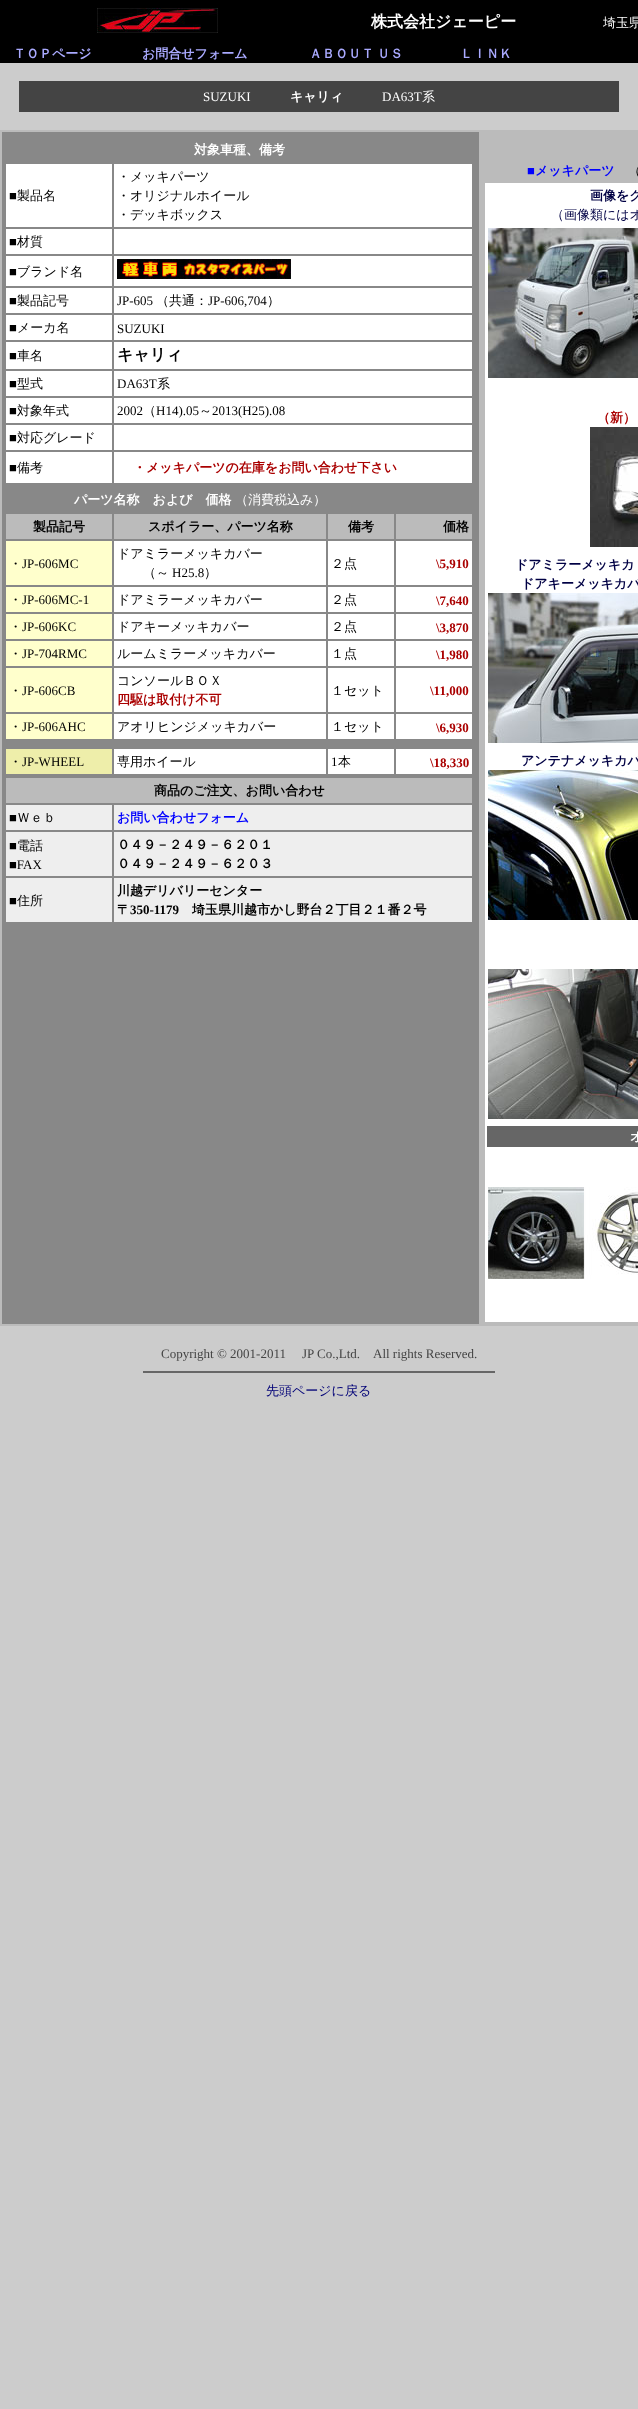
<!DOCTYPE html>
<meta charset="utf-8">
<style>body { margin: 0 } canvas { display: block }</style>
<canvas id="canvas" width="638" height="2409"></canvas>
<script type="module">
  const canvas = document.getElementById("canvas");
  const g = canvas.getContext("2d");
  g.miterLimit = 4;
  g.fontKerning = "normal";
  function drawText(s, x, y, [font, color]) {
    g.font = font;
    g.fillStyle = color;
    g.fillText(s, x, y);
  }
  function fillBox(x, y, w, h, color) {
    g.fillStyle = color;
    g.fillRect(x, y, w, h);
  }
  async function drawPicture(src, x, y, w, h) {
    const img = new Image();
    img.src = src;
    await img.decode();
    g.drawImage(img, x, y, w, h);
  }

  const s1 = ["bold 16px WenQuanYi Zen Hei", "#FFFFFF"];
  const s2 = ["500 13px WenQuanYi Zen Hei", "#FFFFFF"];
  const s3 = ["bold 13px WenQuanYi Zen Hei", "#AAAAFF"];
  const s4 = ["13px Liberation Serif", "#FFFFFF"];
  const s5 = ["bold 13px WenQuanYi Zen Hei", "#FFFFFF"];
  const s6 = ["13px Liberation Serif", "#000000"];
  const s7 = ["500 13px WenQuanYi Zen Hei", "#000000"];
  const s8 = ["bold 16px WenQuanYi Zen Hei", "#000000"];
  const s9 = ["bold 13px WenQuanYi Zen Hei", "#AA0000"];
  const s10 = ["bold 13px WenQuanYi Zen Hei", "#000000"];
  const s11 = ["bold 13px Liberation Serif", "#AA0000"];
  const s12 = ["bold 13px WenQuanYi Zen Hei", "#0000FF"];
  const s13 = ["bold 13px Liberation Serif", "#000000"];
  const s14 = ["bold 13px Liberation Serif", "#0000FF"];
  const s15 = ["bold 13px WenQuanYi Zen Hei", "#000044"];
  const s16 = ["500 13px WenQuanYi Zen Hei", "#000044"];
  const s17 = ["13px Liberation Serif", "#444444"];
  const s18 = ["500 13px WenQuanYi Zen Hei", "#000077"];

  fillBox(0, 0, 638, 2409, "#CCCCCC");
  fillBox(0, 0, 638, 63, "#000000");
  await drawPicture("pic1.png", 97, 8, 121, 25);
  drawText("株式会社ジェーピー", 371, 27, s1);
  drawText("埼玉県", 603, 27, s2);
  drawText("ＴＯＰページ", 13, 58, s3);
  drawText("お問合せフォーム", 142, 58, s3);
  g.wordSpacing = "-1px";
  drawText("ＡＢＯＵＴ ＵＳ", 309, 58, s3);
  g.wordSpacing = "0px";
  drawText("ＬＩＮＫ", 460, 58, s3);
  fillBox(19, 81, 600, 31, "#444444");
  drawText("SUZUKI", 203, 101, s4);
  drawText("キャリィ", 290, 101, s5);
  drawText("DA63T", 382, 101, s4);
  drawText("系", 422, 101, s2);
  fillBox(0, 130, 638, 1196, "#BBBBBB");
  fillBox(2, 132, 477, 1192, "#888888");
  drawText("対象車種、備考", 194, 154, s5);
  fillBox(6, 164, 106, 63, "#FFFFFF");
  drawText("■", 9, 200, s6);
  drawText("製品名", 17, 200, s7);
  fillBox(114, 164, 358, 63, "#FFFFFF");
  drawText("・メッキパーツ", 117, 181, s7);
  drawText("・オリジナルホイール", 117, 200, s7);
  drawText("・デッキボックス", 117, 219, s7);
  fillBox(6, 229, 106, 25, "#FFFFFF");
  drawText("■", 9, 246, s6);
  drawText("材質", 17, 246, s7);
  fillBox(114, 229, 358, 25, "#FFFFFF");
  fillBox(6, 256, 106, 30, "#FFFFFF");
  drawText("■", 9, 276, s6);
  drawText("ブランド名", 17, 276, s7);
  fillBox(114, 256, 358, 30, "#FFFFFF");
  await drawPicture("pic2.png", 117, 259, 174, 20);
  fillBox(6, 288, 106, 25, "#FFFFFF");
  drawText("■", 9, 305, s6);
  drawText("製品記号", 17, 305, s7);
  fillBox(114, 288, 358, 25, "#FFFFFF");
  drawText("JP-605", 117, 305, s6);
  drawText("（共通：", 156, 305, s7);
  drawText("JP-606,704", 208, 305, s6);
  drawText("）", 267, 305, s7);
  fillBox(6, 315, 106, 25, "#FFFFFF");
  drawText("■", 9, 332, s6);
  drawText("メーカ名", 17, 332, s7);
  fillBox(114, 315, 358, 25, "#FFFFFF");
  drawText("SUZUKI", 117, 333, s6);
  fillBox(6, 342, 106, 27, "#FFFFFF");
  drawText("■", 9, 360, s6);
  drawText("車名", 17, 360, s7);
  fillBox(114, 342, 358, 27, "#FFFFFF");
  drawText("キャリィ", 117, 360, s8);
  fillBox(6, 371, 106, 25, "#FFFFFF");
  drawText("■", 9, 388, s6);
  drawText("型式", 17, 388, s7);
  fillBox(114, 371, 358, 25, "#FFFFFF");
  drawText("DA63T", 117, 388, s6);
  drawText("系", 157, 388, s7);
  fillBox(6, 398, 106, 25, "#FFFFFF");
  drawText("■", 9, 415, s6);
  drawText("対象年式", 17, 415, s7);
  fillBox(114, 398, 358, 25, "#FFFFFF");
  drawText("2002", 117, 415, s6);
  drawText("（", 143, 415, s7);
  drawText("H14).05", 156, 415, s6);
  drawText("～", 199, 415, s7);
  drawText("2013(H25).08", 212, 415, s6);
  fillBox(6, 425, 106, 25, "#FFFFFF");
  drawText("■", 9, 442, s6);
  drawText("対応グレード", 17, 442, s7);
  fillBox(114, 425, 358, 25, "#FFFFFF");
  fillBox(6, 452, 106, 31, "#FFFFFF");
  drawText("■", 9, 472, s6);
  drawText("備考", 17, 472, s7);
  fillBox(114, 452, 358, 31, "#FFFFFF");
  drawText("・メッキパーツの在庫をお問い合わせ下さい", 133, 472, s9);
  drawText("パーツ名称　および　価格", 74, 504, s5);
  drawText("（消費税込み）", 235, 504, s2);
  fillBox(6, 514, 106, 25, "#BBBBBB");
  drawText("製品記号", 33, 531, s10);
  fillBox(114, 514, 212, 25, "#BBBBBB");
  drawText("スポイラー、パーツ名称", 148, 531, s10);
  fillBox(328, 514, 66, 25, "#BBBBBB");
  drawText("備考", 348, 531, s10);
  fillBox(396, 514, 76, 25, "#BBBBBB");
  drawText("価格", 443, 531, s10);
  fillBox(6, 541, 106, 44, "#FFFFCC");
  drawText("・", 9, 568, s7);
  drawText("JP-606MC", 22, 568, s6);
  fillBox(114, 541, 212, 44, "#FFFFFF");
  drawText("ドアミラーメッキカバー", 117, 558, s7);
  drawText("（～", 143, 577, s7);
  drawText("H25.8", 172, 577, s6);
  drawText("）", 204, 577, s7);
  fillBox(328, 541, 66, 44, "#FFFFFF");
  drawText("２点", 331, 568, s7);
  fillBox(396, 541, 76, 44, "#FFFFFF");
  drawText("\\5,910", 436, 568, s11);
  fillBox(6, 587, 106, 25, "#FFFFCC");
  drawText("・", 9, 604, s7);
  drawText("JP-606MC-1", 22, 604, s6);
  fillBox(114, 587, 212, 25, "#FFFFFF");
  drawText("ドアミラーメッキカバー", 117, 604, s7);
  fillBox(328, 587, 66, 25, "#FFFFFF");
  drawText("２点", 331, 604, s7);
  fillBox(396, 587, 76, 25, "#FFFFFF");
  drawText("\\7,640", 436, 605, s11);
  fillBox(6, 614, 106, 25, "#FFFFCC");
  drawText("・", 9, 631, s7);
  drawText("JP-606KC", 22, 631, s6);
  fillBox(114, 614, 212, 25, "#FFFFFF");
  drawText("ドアキーメッキカバー", 117, 631, s7);
  fillBox(328, 614, 66, 25, "#FFFFFF");
  drawText("２点", 331, 631, s7);
  fillBox(396, 614, 76, 25, "#FFFFFF");
  drawText("\\3,870", 436, 632, s11);
  fillBox(6, 641, 106, 25, "#FFFFCC");
  drawText("・", 9, 658, s7);
  drawText("JP-704RMC", 22, 658, s6);
  fillBox(114, 641, 212, 25, "#FFFFFF");
  drawText("ルームミラーメッキカバー", 117, 658, s7);
  fillBox(328, 641, 66, 25, "#FFFFFF");
  drawText("１点", 331, 658, s7);
  fillBox(396, 641, 76, 25, "#FFFFFF");
  drawText("\\1,980", 436, 659, s11);
  fillBox(6, 668, 106, 44, "#FFFFCC");
  drawText("・", 9, 695, s7);
  drawText("JP-606CB", 22, 695, s6);
  fillBox(114, 668, 212, 44, "#FFFFFF");
  drawText("コンソールＢＯＸ", 117, 685, s7);
  drawText("四駆は取付け不可", 117, 704, s9);
  fillBox(328, 668, 66, 44, "#FFFFFF");
  drawText("１セット", 331, 695, s7);
  fillBox(396, 668, 76, 44, "#FFFFFF");
  drawText("\\11,000", 430, 695, s11);
  fillBox(6, 714, 106, 25, "#FFFFCC");
  drawText("・", 9, 731, s7);
  drawText("JP-606AHC", 22, 731, s6);
  fillBox(114, 714, 212, 25, "#FFFFFF");
  drawText("アオリヒンジメッキカバー", 117, 731, s7);
  fillBox(328, 714, 66, 25, "#FFFFFF");
  drawText("１セット", 331, 731, s7);
  fillBox(396, 714, 76, 25, "#FFFFFF");
  drawText("\\6,930", 436, 732, s11);
  fillBox(6, 749, 106, 25, "#EEEEAA");
  drawText("・", 9, 766, s7);
  drawText("JP-WHEEL", 22, 766, s6);
  fillBox(114, 749, 212, 25, "#FFFFFF");
  drawText("専用ホイール", 117, 766, s7);
  fillBox(328, 749, 66, 25, "#FFFFFF");
  drawText("1", 331, 766, s6);
  drawText("本", 338, 766, s7);
  fillBox(396, 749, 76, 25, "#FFFFFF");
  drawText("\\18,330", 430, 767, s11);
  fillBox(6, 778, 466, 25, "#BBBBBB");
  drawText("商品のご注文、お問い合わせ", 154, 795, s10);
  fillBox(6, 805, 106, 25, "#EEEEEE");
  drawText("■", 9, 822, s6);
  drawText("Ｗｅｂ", 17, 822, s7);
  fillBox(114, 805, 358, 25, "#EEEEEE");
  drawText("お問い合わせフォーム", 117, 822, s12);
  fillBox(6, 832, 106, 44, "#EEEEEE");
  drawText("■", 9, 850, s6);
  drawText("電話", 17, 850, s7);
  drawText("■FAX", 9, 869, s6);
  fillBox(114, 832, 358, 44, "#EEEEEE");
  drawText("０４９－２４９－６２０１", 117, 849, s10);
  drawText("０４９－２４９－６２０３", 117, 868, s10);
  fillBox(6, 878, 106, 44, "#EEEEEE");
  drawText("■", 9, 905, s6);
  drawText("住所", 17, 905, s7);
  fillBox(114, 878, 358, 44, "#EEEEEE");
  drawText("川越デリバリーセンター", 117, 895, s10);
  drawText("〒", 117, 914, s10);
  drawText("350-1179", 130, 914, s13);
  drawText("埼玉県川越市かし野台２丁目２１番２号", 192, 914, s10);
  drawText("■", 527, 175, s14);
  drawText("メッキパーツ", 535, 175, s12);
  drawText("（", 628, 175, s7);
  fillBox(485, 183, 153, 1139, "#FFFFFF");
  drawText("画像をク", 590, 200, s15);
  drawText("（画像類にはオ", 551, 219, s16);
  await drawPicture("pic3.png", 488, 228, 150, 150);
  drawText("（新）", 597, 422, s9);
  await drawPicture("pic4.png", 590, 427, 48, 120);
  drawText("ドアミラーメッキカ", 515, 569, s15);
  drawText("ドアキーメッキカバ", 521, 588, s15);
  await drawPicture("pic5.png", 488, 593, 150, 150);
  drawText("アンテナメッキカバ", 521, 765, s15);
  await drawPicture("pic6.png", 488, 770, 150, 150);
  await drawPicture("pic7.png", 488, 969, 150, 150);
  fillBox(487, 1126, 151, 21, "#666666");
  drawText("オ", 630, 1141, s5);
  await drawPicture("pic8.png", 488, 1187, 150, 92);
  drawText("Copyright © 2001-2011", 161, 1358, s17);
  drawText("JP Co.,Ltd.", 302, 1358, s17);
  drawText("All rights Reserved.", 373, 1358, s17);
  fillBox(143, 1371, 352, 2, "#666666");
  drawText("先頭ページに戻る", 266, 1395, s18);
</script>
